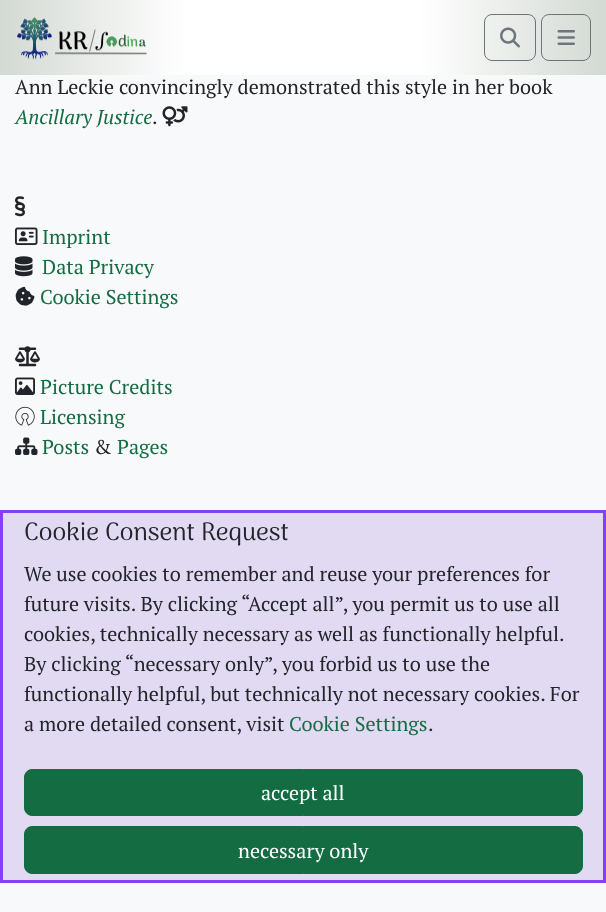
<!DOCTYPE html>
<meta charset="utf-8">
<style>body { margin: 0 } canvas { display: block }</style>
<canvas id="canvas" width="606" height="912"></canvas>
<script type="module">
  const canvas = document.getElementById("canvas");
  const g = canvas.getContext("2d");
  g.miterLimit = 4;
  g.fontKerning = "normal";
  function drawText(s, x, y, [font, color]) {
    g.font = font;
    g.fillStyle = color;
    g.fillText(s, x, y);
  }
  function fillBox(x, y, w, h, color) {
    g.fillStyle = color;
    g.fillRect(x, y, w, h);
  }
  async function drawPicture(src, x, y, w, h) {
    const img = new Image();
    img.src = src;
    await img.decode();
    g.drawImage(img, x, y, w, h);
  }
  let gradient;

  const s1 = ["20px PT Serif", "#212529"];
  const s2 = ["italic 20px PT Serif", "#146C43"];
  const s3 = ["20px PT Serif", "#146C43"];
  const s4 = ["100 25px Arima", "#212529"];
  const s5 = ["20px PT Serif", "#FFFFFF"];

  fillBox(0, 0, 606, 912, "#F8F9FA");
  fillBox(187, 0, 232, 75, "#FFFFFF");
  gradient = g.createLinearGradient(0, 38, 187, 38);
  gradient.addColorStop(0, "#D3D9D3");
  gradient.addColorStop(1, "#FFFFFF");
  g.fillStyle = gradient;
  g.fillRect(0, 0, 187, 75);
  gradient = g.createLinearGradient(606, 38, 419, 38);
  gradient.addColorStop(0, "#D3D9D3");
  gradient.addColorStop(1, "#FFFFFF");
  g.fillStyle = gradient;
  g.fillRect(419, 0, 187, 75);
  await drawPicture("pic1.png", 17, 17, 130, 43);
  g.beginPath();
  g.roundRect(484.5, 14.5, 51, 46, 7.5);
  g.strokeStyle = "#6C757D";
  g.stroke();
  await drawPicture("pic2.png", 500, 27, 20, 21);
  g.beginPath();
  g.roundRect(541.5, 14.5, 49, 46, 7.5);
  g.stroke();
  await drawPicture("pic3.png", 557, 30, 18, 15);
  drawText("Ann Leckie convincingly demonstrated this style in her book", 15, 94, s1);
  drawText("Ancillary Justice", 15, 124, s2);
  drawText(".", 152, 124, s1);
  await drawPicture("pic4.png", 162, 106, 26, 21);
  await drawPicture("pic5.png", 15, 196, 10, 21);
  await drawPicture("pic6.png", 15, 227, 23, 18);
  drawText("Imprint", 42, 244, s3);
  await drawPicture("pic7.png", 15, 256, 18, 21);
  drawText("Data Privacy", 42, 274, s3);
  await drawPicture("pic8.png", 15, 286, 20, 20);
  drawText("Cookie Settings", 40, 304, s3);
  await drawPicture("pic9.png", 15, 346, 25, 21);
  await drawPicture("pic10.png", 15, 377, 20, 18);
  drawText("Picture Credits", 40, 394, s3);
  await drawPicture("pic11.png", 15, 406, 20, 20);
  drawText("Licensing", 40, 424, s3);
  await drawPicture("pic12.png", 15, 437, 23, 18);
  drawText("Posts", 42, 454, s3);
  drawText("&", 94, 454, s1);
  drawText("Pages", 117, 454, s3);
  g.fillStyle = "#E2D9F3";
  g.beginPath();
  g.rect(1.5, 511.5, 603, 370);
  g.fill();
  g.strokeStyle = "#8540F5";
  g.lineWidth = 3;
  g.stroke();
  drawText("Cookie Consent Request", 24, 540, s4);
  drawText("We use cookies to remember and reuse your preferences for", 24, 581, s1);
  drawText("future visits. By clicking “Accept all”, you permit us to use all", 24, 611, s1);
  drawText("cookies, technically necessary as well as functionally helpful.", 24, 641, s1);
  drawText("By clicking “necessary only”, you forbid us to use the", 24, 671, s1);
  drawText("functionally helpful, but technically not necessary cookies. For", 24, 701, s1);
  drawText("a more detailed consent, visit", 24, 731, s1);
  drawText("Cookie Settings", 289, 731, s3);
  drawText(".", 428, 731, s1);
  g.fillStyle = "#146C43";
  g.beginPath();
  g.roundRect(24.5, 769.5, 558, 46, 7.5);
  g.fill();
  g.strokeStyle = "#146C43";
  g.lineWidth = 1;
  g.stroke();
  drawText("accept all", 261, 800, s5);
  g.fillStyle = "#146C43";
  g.beginPath();
  g.roundRect(24.5, 826.5, 558, 47, 7.5);
  g.fill();
  g.stroke();
  drawText("necessary only", 238, 858, s5);
</script>
